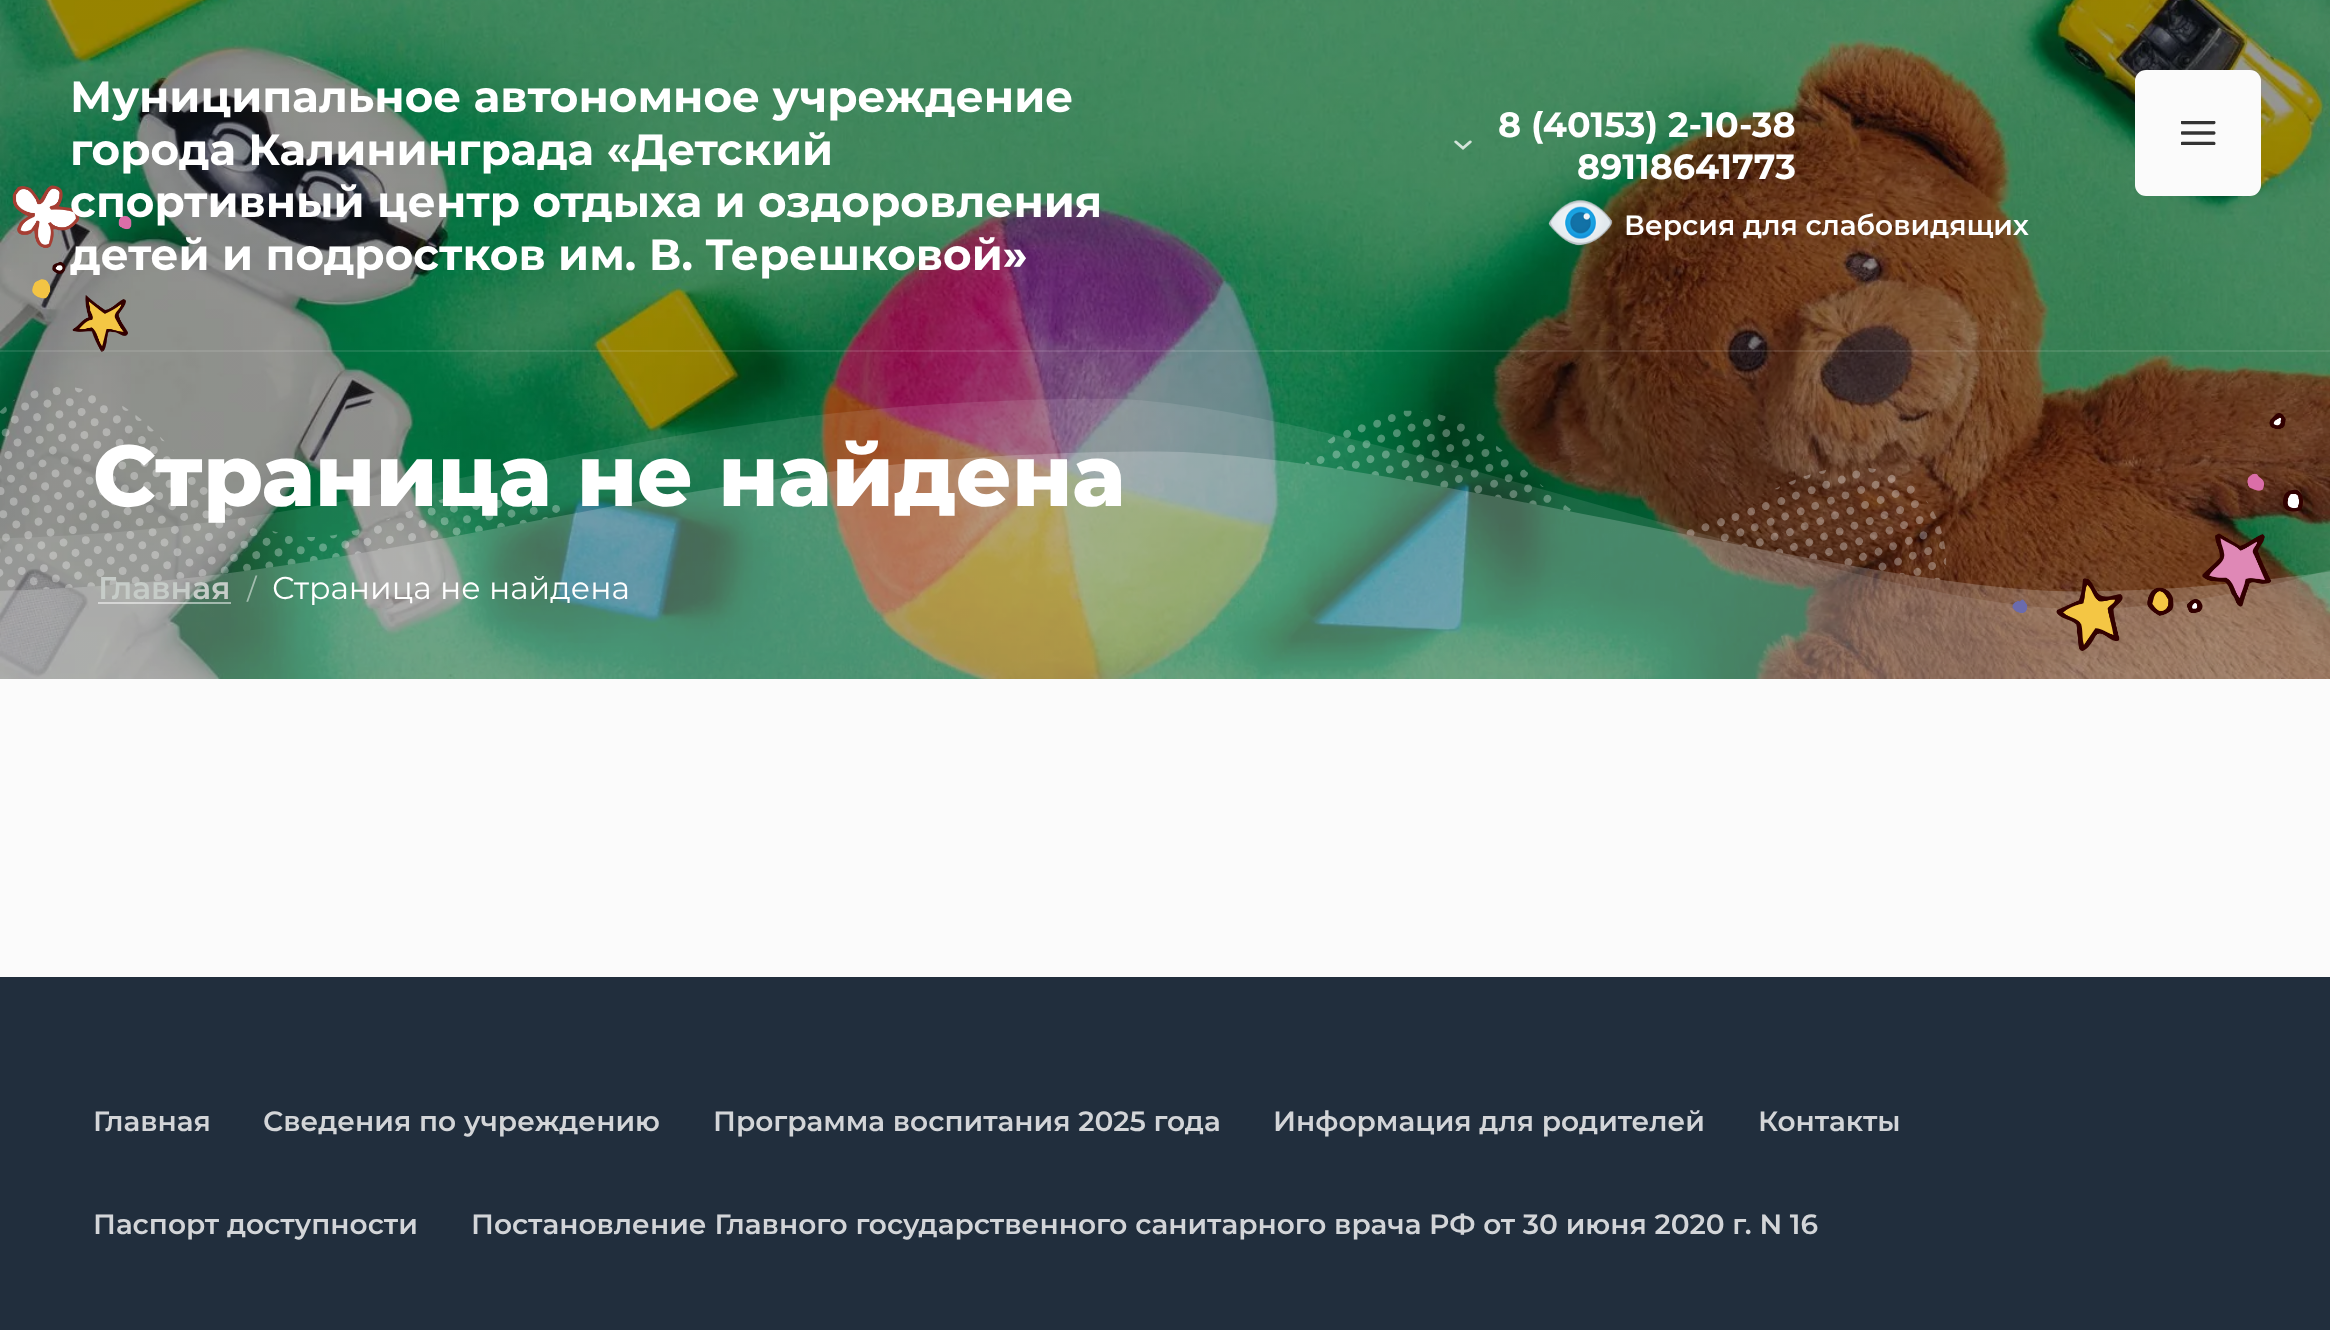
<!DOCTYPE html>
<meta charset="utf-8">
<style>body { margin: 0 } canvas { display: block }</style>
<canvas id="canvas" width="2330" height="1330"></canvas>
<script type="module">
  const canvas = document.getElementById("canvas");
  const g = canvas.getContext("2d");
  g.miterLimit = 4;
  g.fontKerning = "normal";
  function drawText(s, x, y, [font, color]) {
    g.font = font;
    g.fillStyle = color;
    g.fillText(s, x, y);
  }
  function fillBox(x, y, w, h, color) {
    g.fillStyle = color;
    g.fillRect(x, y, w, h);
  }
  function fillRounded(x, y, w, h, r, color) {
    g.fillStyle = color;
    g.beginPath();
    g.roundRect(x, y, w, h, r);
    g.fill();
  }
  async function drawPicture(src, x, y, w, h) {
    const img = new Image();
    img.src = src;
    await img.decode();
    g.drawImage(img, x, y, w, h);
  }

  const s1 = ["bold 43.75px Montserrat", "#FFFFFF"];
  const s2 = ["bold 35px Montserrat", "#FFFFFF"];
  const s3 = ["600 28px Montserrat", "#FFFFFF"];
  const s4 = ["800 86.25px Montserrat", "#FFFFFF"];
  const s5 = ["600 31.5px Montserrat", "#C6CCC8"];
  const s6 = ["28px Montserrat", "#A3BDAF"];
  const s7 = ["31.5px Montserrat", "#FFFFFF"];
  const s8 = ["600 28px Montserrat", "#D3D5D8"];

  fillBox(0, 0, 2330, 1330, "#FBFBFB");
  await drawPicture("pic1.png", 0, 0, 2330, 679);
  drawText("Муниципальное автономное учреждение", 70, 112, s1);
  drawText("города Калининграда «Детский", 70, 165, s1);
  drawText("спортивный центр отдыха и оздоровления", 70, 217, s1);
  drawText("детей и подростков им. В. Терешковой»", 70, 270, s1);
  await drawPicture("pic2.png", 1454, 140, 18, 10);
  drawText("8 (40153) 2-10-38", 1498, 137, s2);
  drawText("89118641773", 1577, 179, s2);
  await drawPicture("pic3.png", 1548, 199, 65, 47);
  drawText("Версия для слабовидящих", 1624, 235, s3);
  fillBox(0, 350, 2330, 2, "rgba(255, 255, 255, 0.1)");
  drawText("Страница не найдена", 93, 506, s4);
  drawText("Главная", 98, 599, s5);
  fillBox(98, 602, 133, 2, "rgba(255, 255, 255, 0.5)");
  drawText("/", 247, 599, s6);
  drawText("Страница не найдена", 272, 599, s7);
  fillBox(0, 977, 2330, 353, "#212E3D");
  drawText("Главная", 93, 1131, s8);
  drawText("Сведения по учреждению", 263, 1131, s8);
  drawText("Программа воспитания 2025 года", 713, 1131, s8);
  drawText("Информация для родителей", 1273, 1131, s8);
  drawText("Контакты", 1758, 1131, s8);
  drawText("Паспорт доступности", 93, 1234, s8);
  drawText("Постановление Главного государственного санитарного врача РФ от 30 июня 2020 г. N 16", 471, 1234, s8);
  fillRounded(2135, 70, 126, 126, 11, "#FBFBFB");
  await drawPicture("pic4.png", 2181, 121, 35, 24);
</script>
